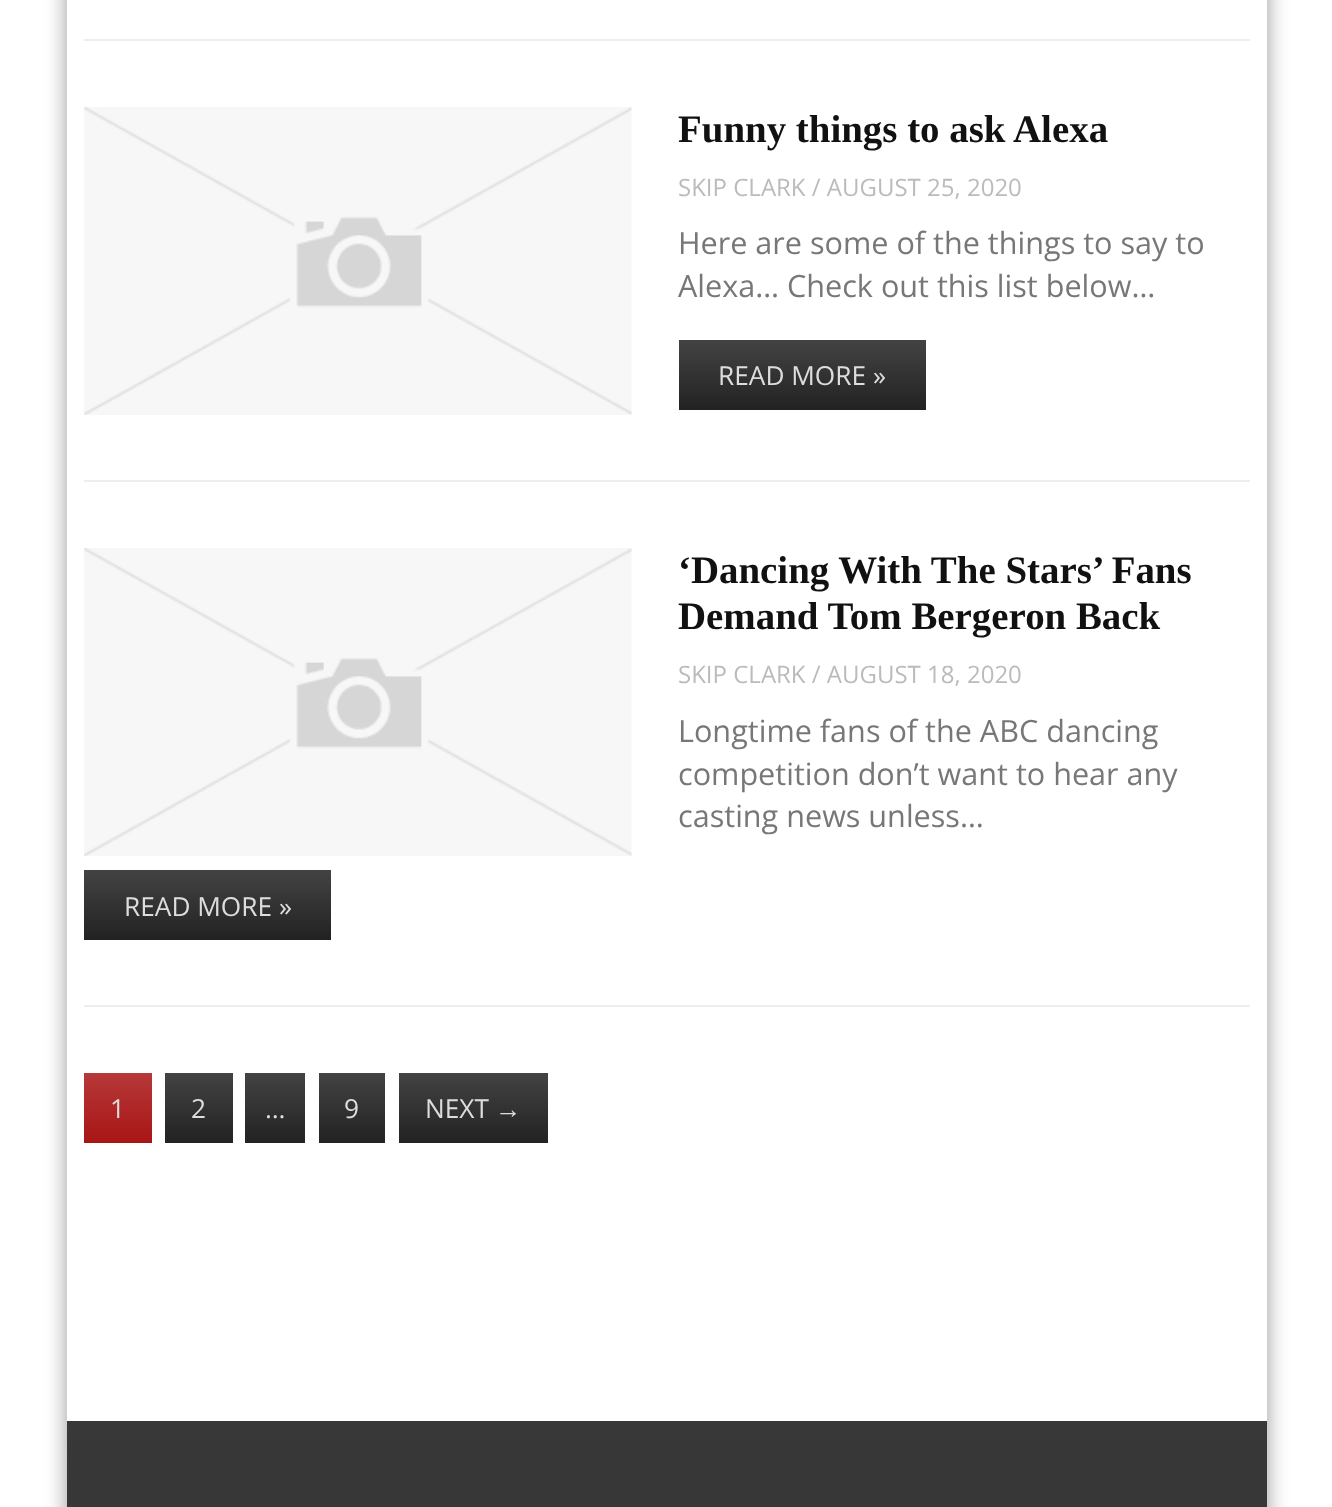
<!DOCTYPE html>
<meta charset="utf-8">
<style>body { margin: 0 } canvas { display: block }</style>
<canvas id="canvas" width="1332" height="1507"></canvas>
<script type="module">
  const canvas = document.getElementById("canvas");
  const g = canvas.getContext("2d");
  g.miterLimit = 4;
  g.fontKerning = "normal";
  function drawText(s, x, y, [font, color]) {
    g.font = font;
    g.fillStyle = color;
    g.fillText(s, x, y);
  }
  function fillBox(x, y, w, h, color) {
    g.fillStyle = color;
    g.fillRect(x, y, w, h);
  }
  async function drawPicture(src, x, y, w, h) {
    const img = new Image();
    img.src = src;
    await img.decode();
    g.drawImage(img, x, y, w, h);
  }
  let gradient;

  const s1 = ["bold 38.9px Liberation Serif", "#111111"];
  const s2 = ["24px Open Sans", "#BBBBBB"];
  const s3 = ["30.6px Open Sans", "#777777"];
  const s4 = ["26.25px Open Sans", "#DDDDDD"];
  const s5 = ["26.25px Liberation Serif", "#DDDDDD"];

  fillBox(0, 0, 1332, 1507, "#FFFFFF");
  g.save();
  g.beginPath();
  g.moveTo(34, 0);
  g.lineTo(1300, 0);
  g.lineTo(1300, 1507);
  g.lineTo(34, 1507);
  g.closePath();
  g.moveTo(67, -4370);
  g.lineTo(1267, -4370);
  g.lineTo(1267, 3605);
  g.lineTo(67, 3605);
  g.closePath();
  g.clip("evenodd");
  g.fillStyle = "rgba(0, 0, 0, 0.4)";
  g.filter = "blur(10.5px)";
  g.beginPath();
  g.rect(67, -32, 1200, 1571);
  g.fill();
  g.filter = "none";
  g.restore();
  fillBox(84, 39, 1166, 2, "#EEEEEE");
  fillBox(84, 480, 1166, 2, "#EEEEEE");
  await drawPicture("pic1.png", 84, 107, 548, 308);
  drawText("Funny things to ask Alexa", 678, 142, s1);
  drawText("SKIP CLARK / AUGUST 25, 2020", 678, 196, s2);
  drawText("Here are some of the things to say to", 678, 254, s3);
  drawText("Alexa… Check out this list below…", 678, 297, s3);
  gradient = g.createLinearGradient(802, 340, 802, 410);
  gradient.addColorStop(0, "#434343");
  gradient.addColorStop(1, "#222222");
  g.fillStyle = gradient;
  g.fillRect(679, 340, 247, 70);
  drawText("READ MORE »", 718, 385, s4);
  fillBox(84, 1005, 1166, 2, "#EEEEEE");
  await drawPicture("pic1.png", 84, 548, 548, 308);
  drawText("‘Dancing With The Stars’ Fans", 678, 583, s1);
  drawText("Demand Tom Bergeron Back", 678, 629, s1);
  drawText("SKIP CLARK / AUGUST 18, 2020", 678, 683, s2);
  drawText("Longtime fans of the ABC dancing", 678, 742, s3);
  drawText("competition don’t want to hear any", 678, 785, s3);
  drawText("casting news unless…", 678, 827, s3);
  gradient = g.createLinearGradient(207, 870, 207, 940);
  gradient.addColorStop(0, "#434343");
  gradient.addColorStop(1, "#222222");
  g.fillStyle = gradient;
  g.fillRect(84, 870, 247, 70);
  drawText("READ MORE »", 124, 916, s4);
  gradient = g.createLinearGradient(118, 1073, 118, 1143);
  gradient.addColorStop(0, "#B63838");
  gradient.addColorStop(1, "#A91515");
  g.fillStyle = gradient;
  g.fillRect(84, 1073, 68, 70);
  drawText("1", 110, 1118, s4);
  gradient = g.createLinearGradient(199, 1073, 199, 1143);
  gradient.addColorStop(0, "#434343");
  gradient.addColorStop(1, "#222222");
  g.fillStyle = gradient;
  g.fillRect(165, 1073, 68, 70);
  drawText("2", 191, 1118, s4);
  gradient = g.createLinearGradient(275, 1073, 275, 1143);
  gradient.addColorStop(0, "#434343");
  gradient.addColorStop(1, "#222222");
  g.fillStyle = gradient;
  g.fillRect(245, 1073, 60, 70);
  drawText("…", 265, 1118, s4);
  gradient = g.createLinearGradient(352, 1073, 352, 1143);
  gradient.addColorStop(0, "#434343");
  gradient.addColorStop(1, "#222222");
  g.fillStyle = gradient;
  g.fillRect(319, 1073, 66, 70);
  drawText("9", 344, 1118, s4);
  gradient = g.createLinearGradient(473, 1073, 473, 1143);
  gradient.addColorStop(0, "#434343");
  gradient.addColorStop(1, "#222222");
  g.fillStyle = gradient;
  g.fillRect(399, 1073, 149, 70);
  drawText("NEXT", 425, 1118, s4);
  drawText("→", 495, 1118, s5);
  gradient = g.createLinearGradient(667, 1421, 667, 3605);
  gradient.addColorStop(0, "#383838");
  gradient.addColorStop(1, "#222222");
  g.fillStyle = gradient;
  g.fillRect(67, 1421, 1200, 86);
</script>
